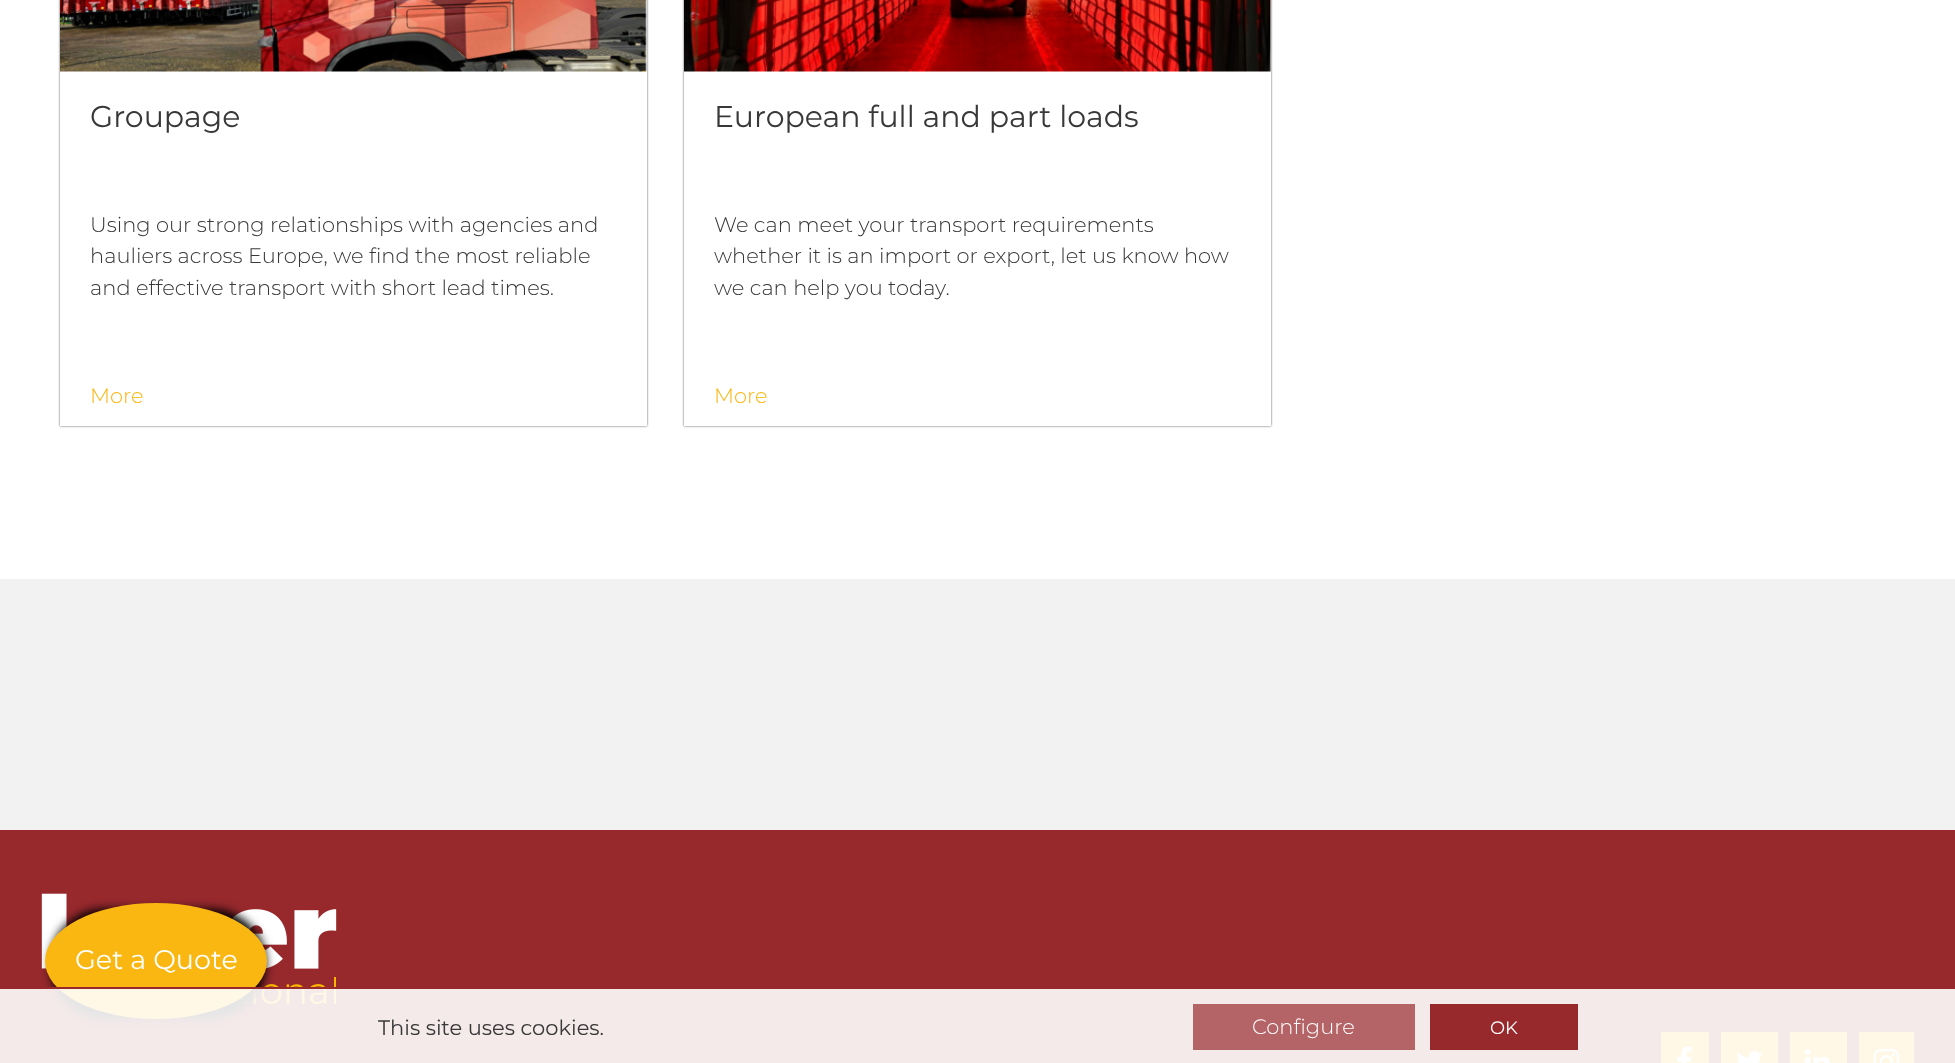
<!DOCTYPE html>
<meta charset="utf-8">
<style>body { margin: 0 } canvas { display: block }</style>
<canvas id="canvas" width="1955" height="1063"></canvas>
<script type="module">
  const canvas = document.getElementById("canvas");
  const g = canvas.getContext("2d");
  g.miterLimit = 4;
  g.fontKerning = "normal";
  function drawText(s, x, y, [font, color]) {
    g.font = font;
    g.fillStyle = color;
    g.fillText(s, x, y);
  }
  function fillBox(x, y, w, h, color) {
    g.fillStyle = color;
    g.fillRect(x, y, w, h);
  }
  async function drawPicture(src, x, y, w, h) {
    const img = new Image();
    img.src = src;
    await img.decode();
    g.drawImage(img, x, y, w, h);
  }

  const s1 = ["30px Montserrat", "#383838"];
  const s2 = ["300 21px Montserrat", "#383838"];
  const s3 = ["300 21px Montserrat", "#FAB611"];
  const s4 = ["27px Montserrat", "#FFFFFF"];
  const s5 = ["21px Montserrat", "#383838"];
  const s6 = ["300 21px Montserrat", "#FFFFFF"];
  const s7 = ["18px Montserrat", "#FFFFFF"];

  fillBox(0, 0, 1955, 1063, "#FFFFFF");
  g.fillStyle = "#545454";
  g.filter = "blur(1px)";
  g.beginPath();
  g.rect(60, -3, 587, 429);
  g.fill();
  g.filter = "none";
  fillBox(60, 0, 587, 426, "#FFFFFF");
  await drawPicture("pic1.png", 60, 0, 587, 72);
  drawText("Groupage", 90, 127, s1);
  drawText("Using our strong relationships with agencies and", 90, 232, s2);
  drawText("hauliers across Europe, we find the most reliable", 90, 263, s2);
  drawText("and effective transport with short lead times.", 90, 295, s2);
  drawText("More", 90, 403, s3);
  g.fillStyle = "#545454";
  g.filter = "blur(1px)";
  g.beginPath();
  g.rect(684, -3, 587, 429);
  g.fill();
  g.filter = "none";
  fillBox(684, 0, 587, 426, "#FFFFFF");
  await drawPicture("pic2.png", 684, 0, 587, 72);
  drawText("European full and part loads", 714, 127, s1);
  drawText("We can meet your transport requirements", 714, 232, s2);
  drawText("whether it is an import or export, let us know how", 714, 263, s2);
  drawText("we can help you today.", 714, 295, s2);
  drawText("More", 714, 403, s3);
  fillBox(0, 579, 1955, 251, "#F2F2F2");
  fillBox(0, 830, 1955, 233, "#97292D");
  await drawPicture("pic3.png", 41, 893, 296, 112);
  fillBox(1661, 1032, 48, 31, "#FAB611");
  await drawPicture("pic4.png", 1677, 1046, 15, 17);
  fillBox(1721, 1032, 57, 31, "#FAB611");
  await drawPicture("pic5.png", 1737, 1051, 26, 12);
  fillBox(1790, 1032, 57, 31, "#FAB611");
  await drawPicture("pic6.png", 1804, 1049, 27, 14);
  fillBox(1859, 1032, 55, 31, "#FAB611");
  await drawPicture("pic7.png", 1873, 1048, 27, 15);
  g.fillStyle = "#000000";
  g.filter = "blur(5px)";
  g.beginPath();
  g.roundRect(50, 909, 216, 110, 55);
  g.fill();
  g.filter = "none";
  g.fillStyle = "#FAB611";
  g.beginPath();
  g.ellipse(156, 961, 111, 58, 0, 0, Math.PI * 2);
  g.fill();
  drawText("Get a Quote", 75, 969, s4);
  fillBox(0, 989, 1955, 74, "rgba(255, 255, 255, 0.9)");
  fillBox(44, 987, 292, 2, "#97292D");
  drawText("This site uses cookies.", 378, 1035, s5);
  fillBox(1193, 1004, 222, 46, "#B46366");
  drawText("Configure", 1252, 1034, s6);
  fillBox(1430, 1004, 148, 46, "#97292D");
  drawText("OK", 1490, 1034, s7);
</script>
